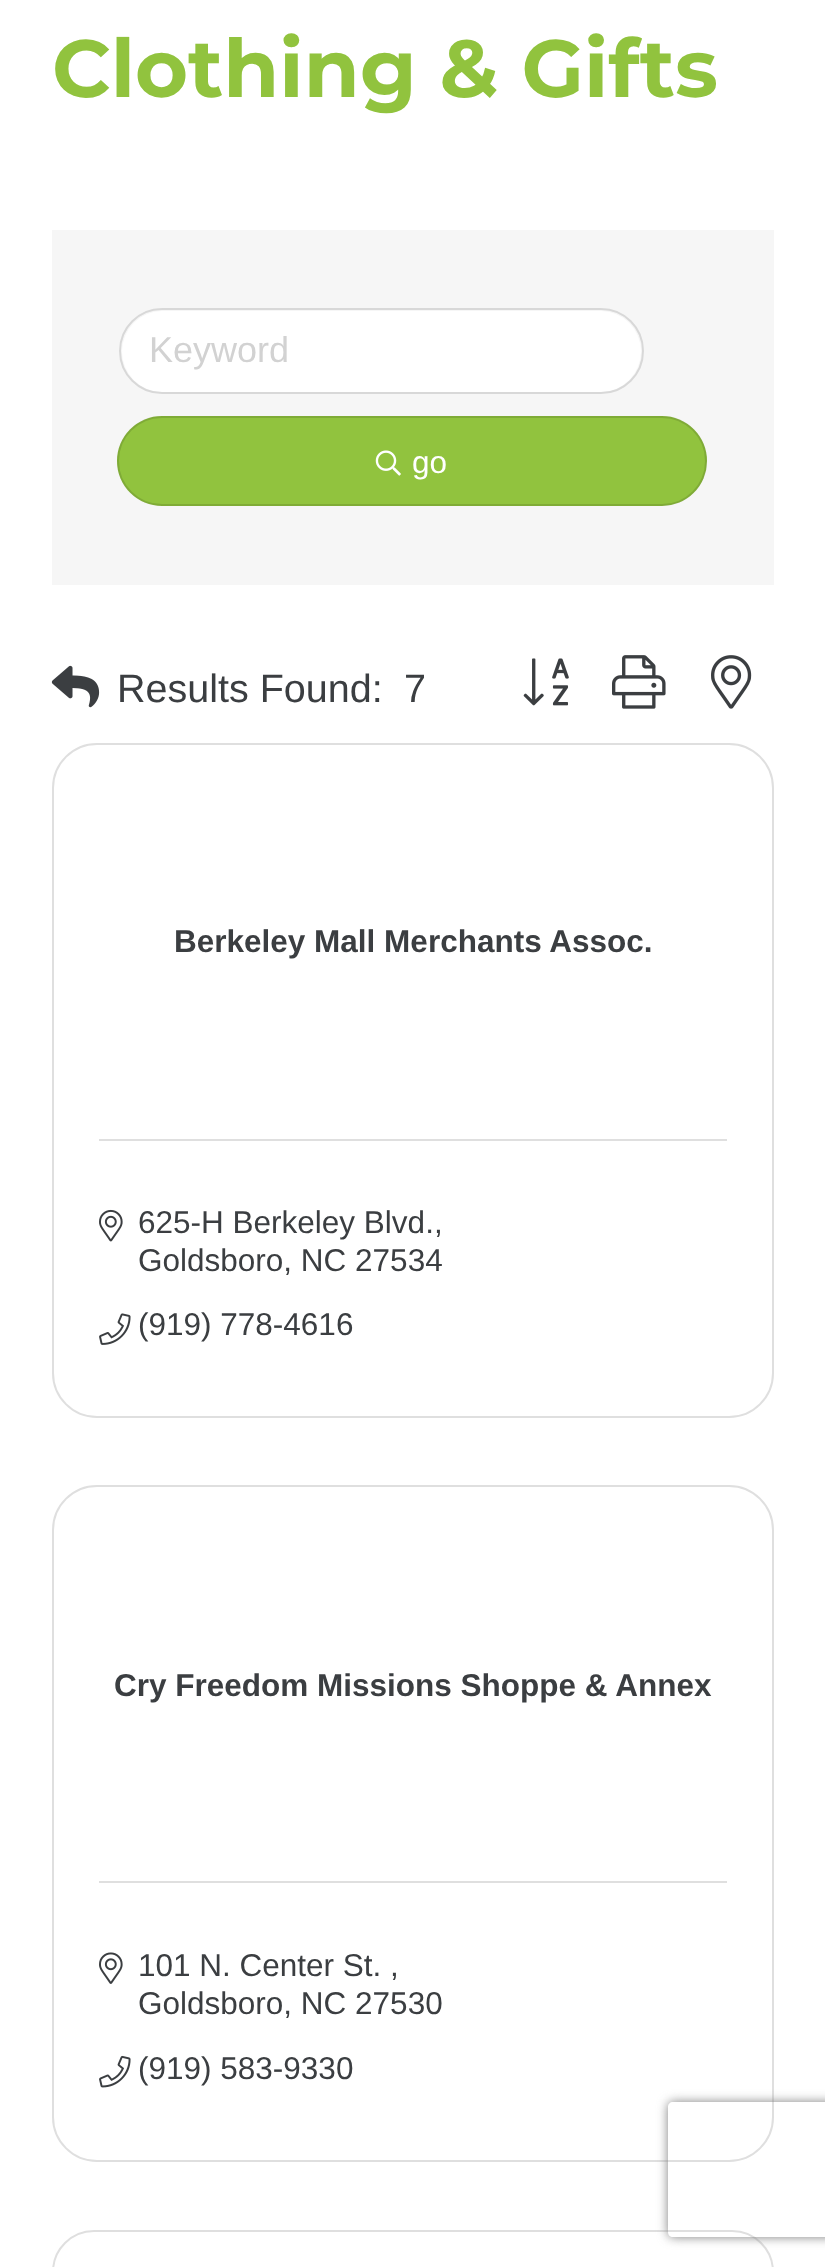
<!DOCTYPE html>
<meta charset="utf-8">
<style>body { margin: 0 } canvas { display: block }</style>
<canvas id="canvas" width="825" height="2267"></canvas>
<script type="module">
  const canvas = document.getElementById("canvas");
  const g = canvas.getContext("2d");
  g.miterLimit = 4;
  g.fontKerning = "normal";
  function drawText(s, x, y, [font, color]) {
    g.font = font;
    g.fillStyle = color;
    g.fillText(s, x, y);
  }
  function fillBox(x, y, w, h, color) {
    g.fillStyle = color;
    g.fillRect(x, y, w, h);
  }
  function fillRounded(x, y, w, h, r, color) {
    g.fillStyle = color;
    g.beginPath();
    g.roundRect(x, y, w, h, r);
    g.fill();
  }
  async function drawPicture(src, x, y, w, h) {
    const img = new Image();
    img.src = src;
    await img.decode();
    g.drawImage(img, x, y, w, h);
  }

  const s1 = ["bold 81px Montserrat", "#91C33E"];
  const s2 = ["36px Liberation Sans", "#D2D2D2"];
  const s3 = ["31.5px Liberation Sans", "#FFFFFF"];
  const s4 = ["39.5px Liberation Sans", "#3B3E41"];
  const s5 = ["bold 31.5px Liberation Sans", "#3B3E41"];
  const s6 = ["31.5px Liberation Sans", "#3B3E41"];

  fillBox(0, 0, 825, 2267, "#FFFFFF");
  drawText("Clothing & Gifts", 52, 97, s1);
  fillBox(52, 230, 722, 355, "#F6F6F6");
  fillRounded(122, 311, 519, 81, 40.5, "#FFFFFF");
  g.beginPath();
  g.roundRect(120, 309, 523, 84, 42);
  g.strokeStyle = "rgba(0, 0, 0, 0.12)";
  g.lineWidth = 2;
  g.stroke();
  drawText("Keyword", 149, 362, s2);
  fillRounded(117, 416, 590, 90, 45, "#91C33E");
  g.beginPath();
  g.roundRect(118, 417, 588, 88, 44);
  g.stroke();
  await drawPicture("pic1.png", 375, 450, 26, 26);
  drawText("go", 412, 473, s3);
  await drawPicture("pic2.png", 51, 665, 49, 43);
  drawText("Results Found:", 117, 702, s4);
  drawText("7", 404, 702, s4);
  await drawPicture("pic3.png", 523, 658, 46, 48);
  await drawPicture("pic4.png", 612, 655, 54, 54);
  await drawPicture("pic5.png", 711, 655, 41, 54);
  g.beginPath();
  g.roundRect(53, 744, 720, 673, 44);
  g.strokeStyle = "#DFDFDF";
  g.stroke();
  drawText("Berkeley Mall Merchants Assoc.", 174, 952, s5);
  fillBox(99, 1139, 628, 2, "#DFDFDF");
  await drawPicture("pic6.png", 99, 1209, 24, 33);
  drawText("625-H Berkeley Blvd.,", 138, 1233, s6);
  drawText("Goldsboro, NC 27534", 138, 1271, s6);
  await drawPicture("pic7.png", 99, 1313, 32, 32);
  drawText("(919) 778-4616", 138, 1335, s6);
  g.beginPath();
  g.roundRect(53, 1486, 720, 675, 44);
  g.stroke();
  drawText("Cry Freedom Missions Shoppe & Annex", 114, 1696, s5);
  fillBox(99, 1881, 628, 2, "#DFDFDF");
  await drawPicture("pic8.png", 99, 1952, 24, 32);
  drawText("101 N. Center St. ,", 138, 1976, s6);
  drawText("Goldsboro, NC 27530", 138, 2014, s6);
  await drawPicture("pic9.png", 99, 2055, 32, 33);
  drawText("(919) 583-9330", 138, 2079, s6);
  g.beginPath();
  g.roundRect(53, 2231, 720, 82, 44);
  g.stroke();
  g.save();
  g.beginPath();
  g.moveTo(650, 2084);
  g.lineTo(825, 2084);
  g.lineTo(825, 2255);
  g.lineTo(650, 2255);
  g.closePath();
  g.moveTo(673, 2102);
  g.lineTo(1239, 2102);
  g.bezierCurveTo(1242, 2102, 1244, 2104, 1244, 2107);
  g.lineTo(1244, 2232);
  g.bezierCurveTo(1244, 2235, 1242, 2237, 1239, 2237);
  g.lineTo(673, 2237);
  g.bezierCurveTo(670, 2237, 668, 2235, 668, 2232);
  g.lineTo(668, 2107);
  g.bezierCurveTo(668, 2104, 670, 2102, 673, 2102);
  g.closePath();
  g.clip("evenodd");
  g.fillStyle = "#808080";
  g.filter = "blur(5.5px)";
  g.beginPath();
  g.roundRect(668, 2102, 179, 135, 5);
  g.fill();
  g.filter = "none";
  g.restore();
</script>
